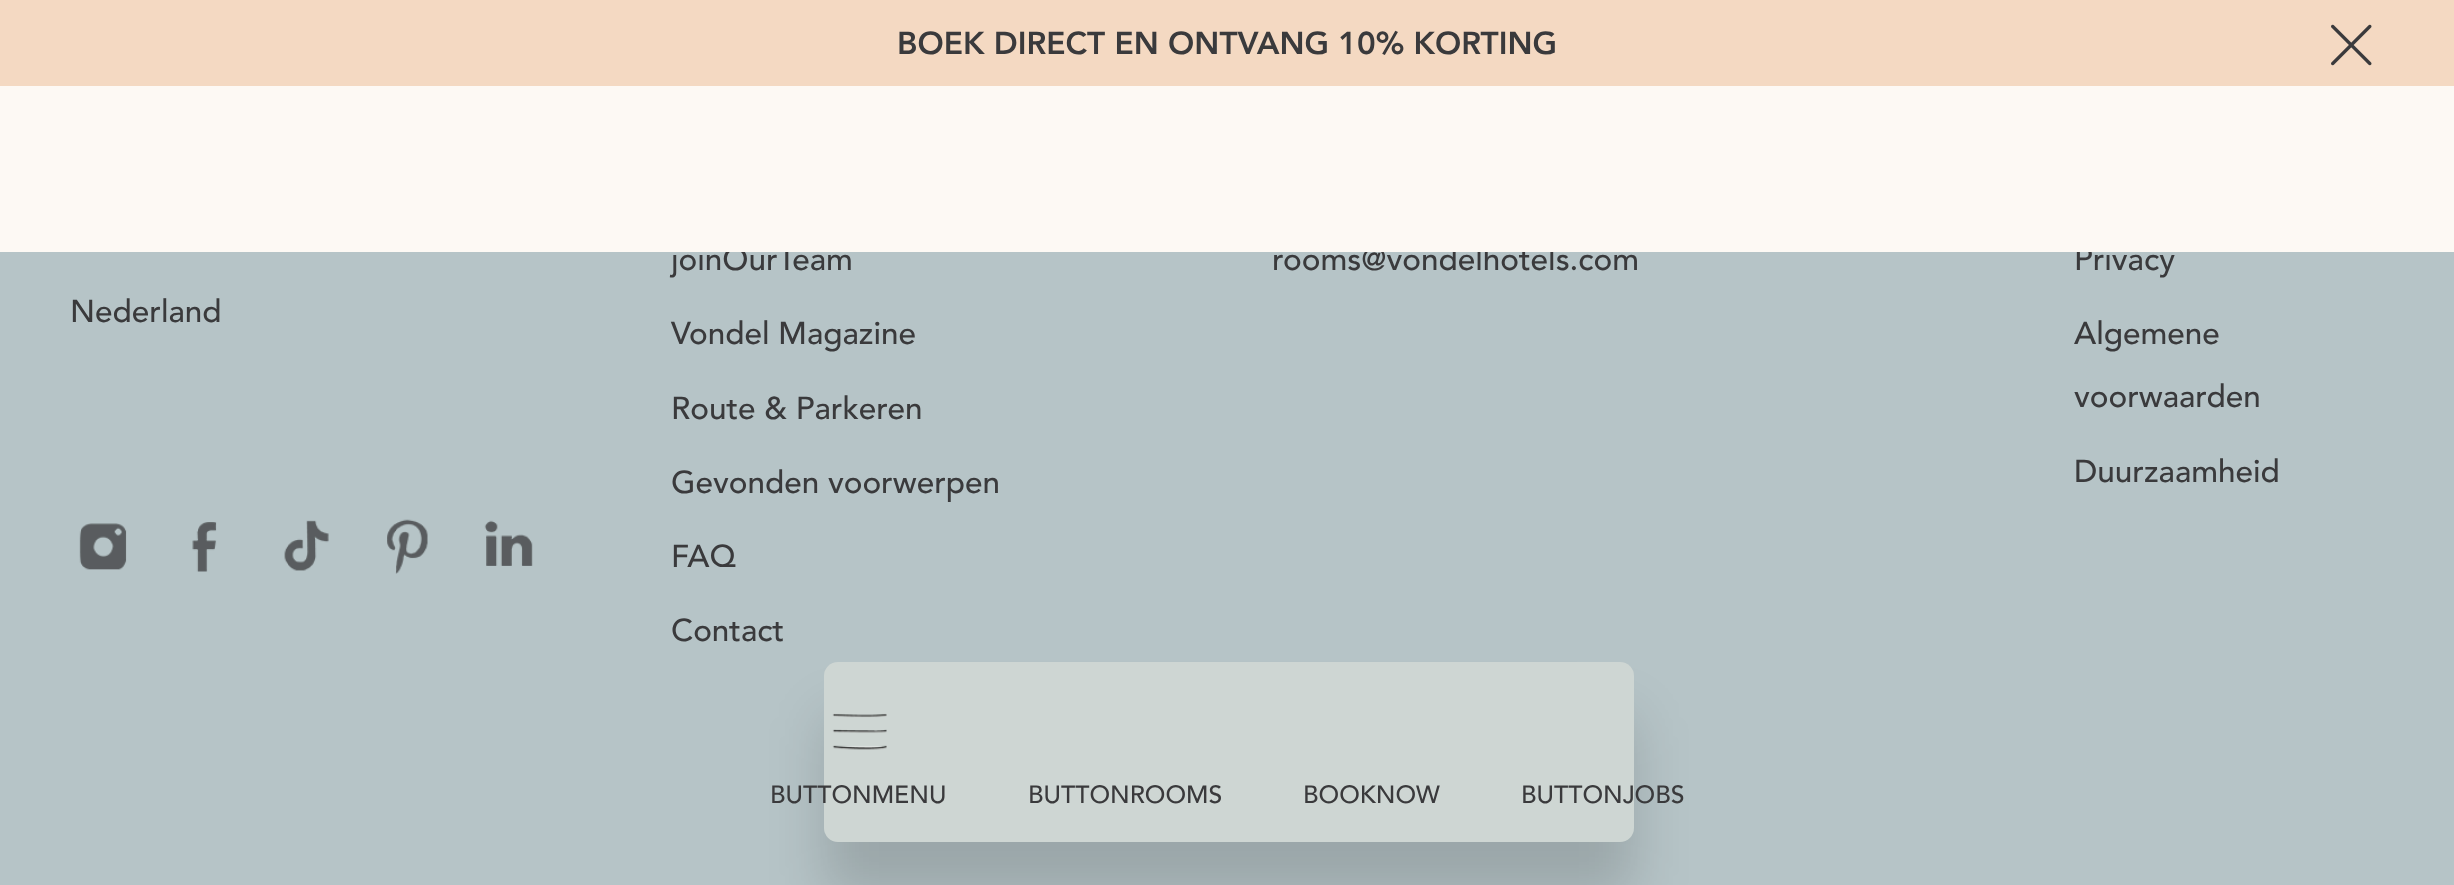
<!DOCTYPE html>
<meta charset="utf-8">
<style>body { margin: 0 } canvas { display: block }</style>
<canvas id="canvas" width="2454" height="885"></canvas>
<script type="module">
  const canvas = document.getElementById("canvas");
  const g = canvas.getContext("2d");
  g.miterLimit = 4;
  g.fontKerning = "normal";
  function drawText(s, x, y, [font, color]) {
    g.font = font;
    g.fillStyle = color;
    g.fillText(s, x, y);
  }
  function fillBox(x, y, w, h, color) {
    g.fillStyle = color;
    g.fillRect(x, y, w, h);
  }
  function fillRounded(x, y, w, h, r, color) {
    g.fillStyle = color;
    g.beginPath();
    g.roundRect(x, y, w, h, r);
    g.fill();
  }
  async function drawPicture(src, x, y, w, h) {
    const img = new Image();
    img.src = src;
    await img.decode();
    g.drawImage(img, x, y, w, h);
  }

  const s1 = ["900 31.5px Avenir", "#3A3A3C"];
  const s2 = ["500 31.5px Avenir", "#3A3A3C"];
  const s3 = ["500 24.75px Avenir", "#3A3A3C"];

  fillBox(0, 0, 2454, 885, "#B6C4C7");
  fillBox(0, 0, 2454, 86, "#F4D9C2");
  drawText("BOEK DIRECT EN ONTVANG 10% KORTING", 897, 54, s1);
  await drawPicture("pic1.png", 2331, 24, 41, 42);
  drawText("joinOurTeam", 671, 270, s2);
  drawText("rooms@vondelhotels.com", 1272, 270, s2);
  drawText("Privacy", 2074, 270, s2);
  fillBox(0, 86, 2454, 166, "#FDF9F4");
  g.fillStyle = "rgba(0, 0, 0, 0.15)";
  g.filter = "blur(27px)";
  g.beginPath();
  g.roundRect(824, 716, 810, 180, 14);
  g.fill();
  g.filter = "none";
  fillRounded(824, 662, 810, 180, 14, "#CED6D3");
  await drawPicture("pic2.png", 832, 713, 55, 37);
  drawText("BUTTONMENU", 770, 803, s3);
  drawText("BUTTONROOMS", 1028, 803, s3);
  drawText("BOOKNOW", 1303, 803, s3);
  drawText("BUTTONJOBS", 1521, 803, s3);
  drawText("Nederland", 70, 322, s2);
  await drawPicture("pic3.png", 79, 523, 48, 47);
  await drawPicture("pic4.png", 192, 522, 25, 50);
  await drawPicture("pic5.png", 284, 520, 45, 51);
  await drawPicture("pic6.png", 387, 519, 41, 55);
  await drawPicture("pic7.png", 484, 520, 49, 46);
  drawText("Vondel Magazine", 671, 344, s2);
  drawText("Route & Parkeren", 671, 419, s2);
  drawText("Gevonden voorwerpen", 671, 493, s2);
  drawText("FAQ", 671, 567, s2);
  drawText("Contact", 671, 641, s2);
  drawText("Algemene", 2074, 344, s2);
  drawText("voorwaarden", 2074, 407, s2);
  drawText("Duurzaamheid", 2074, 482, s2);
</script>
